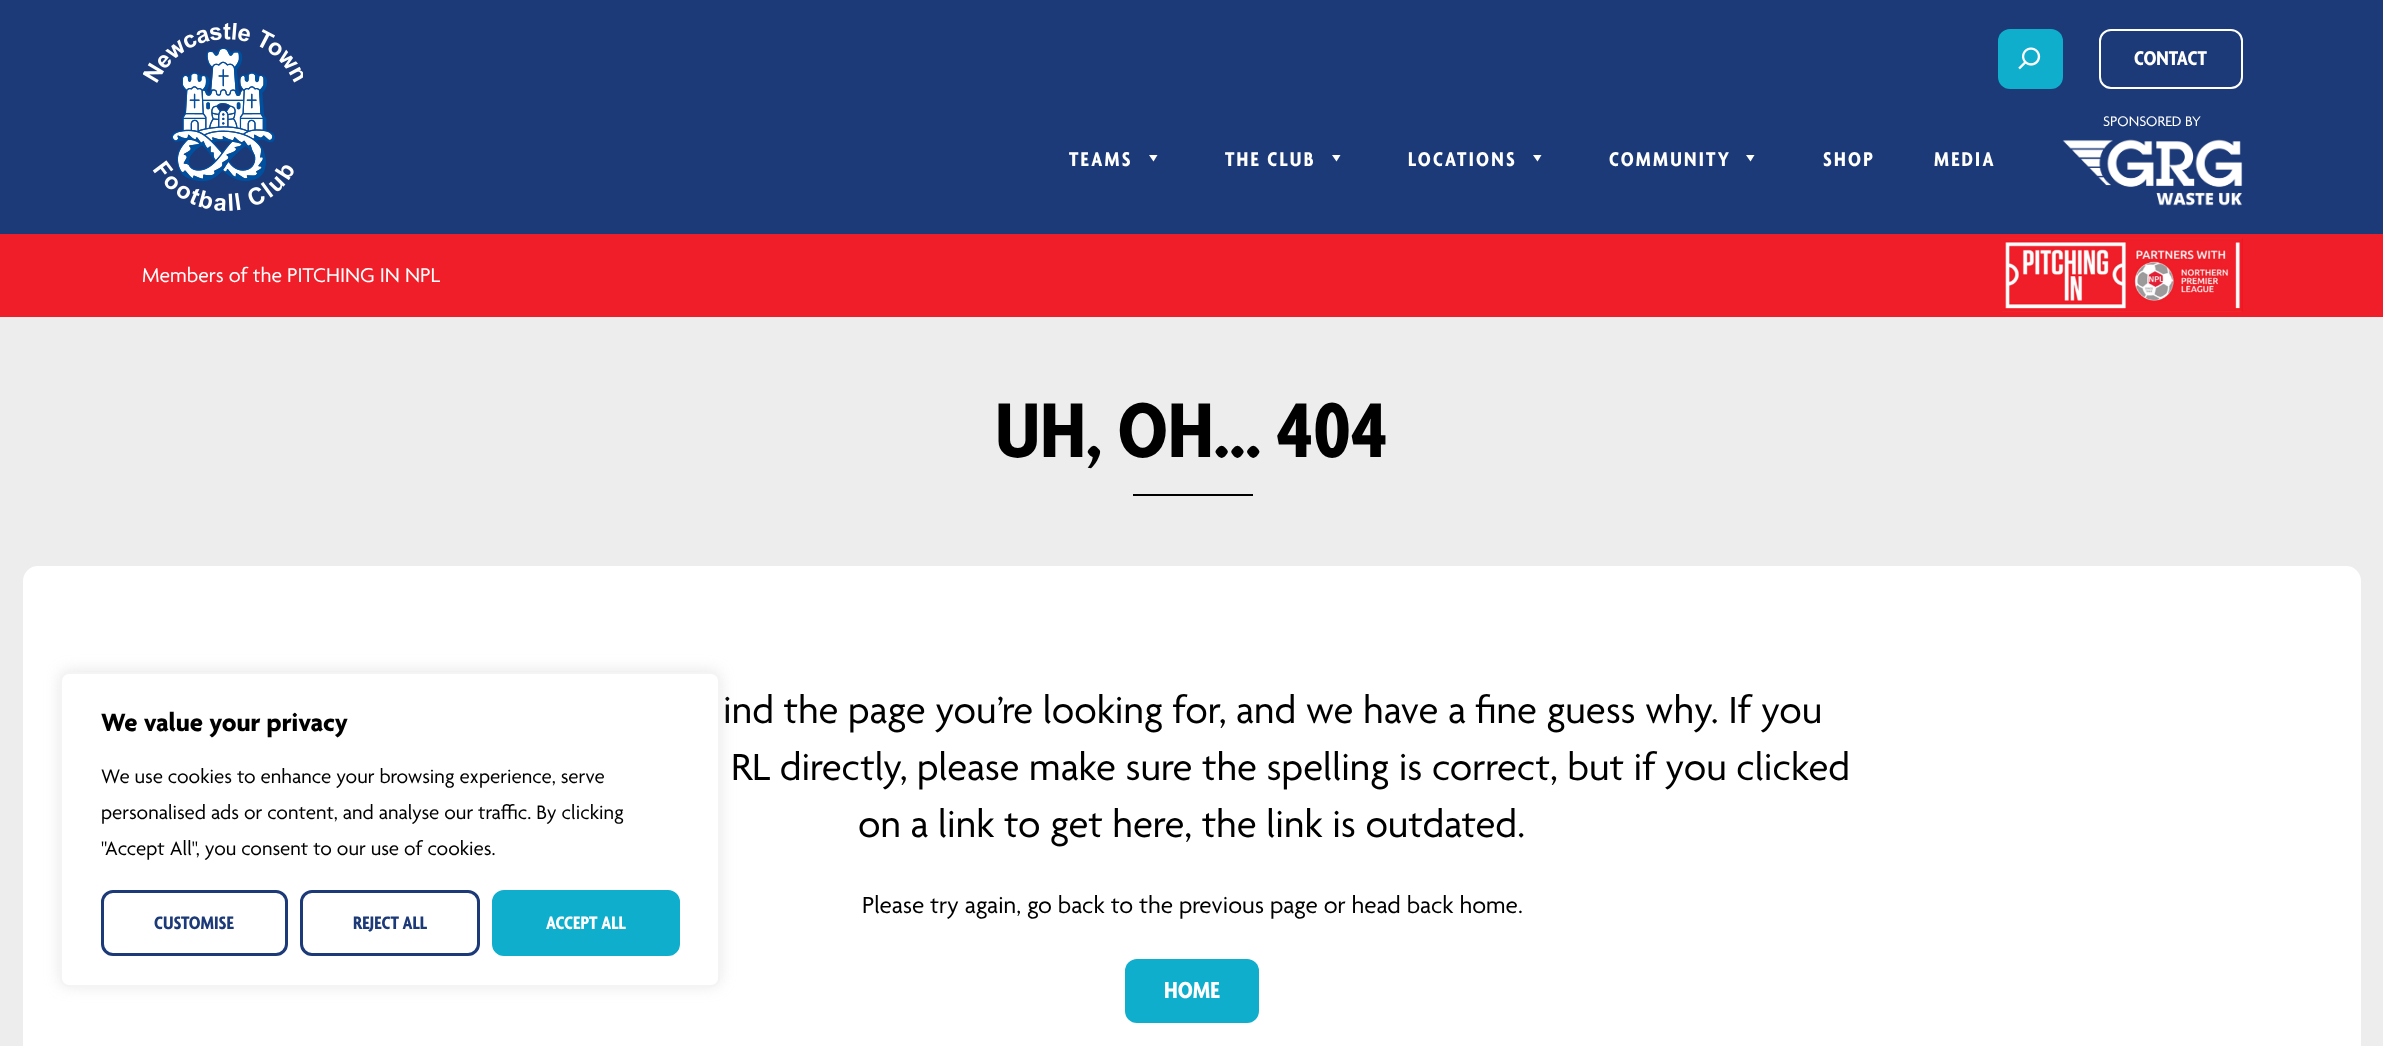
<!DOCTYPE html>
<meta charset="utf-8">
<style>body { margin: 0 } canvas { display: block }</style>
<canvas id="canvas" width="2383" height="1046"></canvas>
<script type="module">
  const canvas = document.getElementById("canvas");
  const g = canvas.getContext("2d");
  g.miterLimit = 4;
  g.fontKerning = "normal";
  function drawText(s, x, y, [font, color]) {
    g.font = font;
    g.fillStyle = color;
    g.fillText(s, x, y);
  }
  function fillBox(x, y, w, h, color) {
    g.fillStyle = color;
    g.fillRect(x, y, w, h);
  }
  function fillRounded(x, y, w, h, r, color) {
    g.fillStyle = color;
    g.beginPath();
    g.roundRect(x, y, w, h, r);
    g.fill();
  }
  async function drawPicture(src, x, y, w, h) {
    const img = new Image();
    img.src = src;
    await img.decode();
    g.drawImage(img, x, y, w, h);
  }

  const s1 = ["bold 21.6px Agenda", "#FFFFFF"];
  const s2 = ["15px Agenda", "#FFFFFF"];
  const s3 = ["21.6px Agenda", "#FFFFFF"];
  const s4 = ["bold 84px Agenda", "#000000"];
  const s5 = ["40.8px Agenda", "#000000"];
  const s6 = ["25.2px Agenda", "#000000"];
  const s7 = ["bold 25.2px Agenda", "#FFFFFF"];
  const s8 = ["bold 27px 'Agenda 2'", "#000000"];
  const s9 = ["21px Agenda", "#000000"];
  const s10 = ["bold 19.5px Agenda", "#1C3978"];
  const s11 = ["bold 19.5px Agenda", "#FFFFFF"];

  fillBox(0, 0, 2383, 1046, "#F01E29");
  fillBox(0, 0, 2383, 234, "#1C3978");
  await drawPicture("pic1.png", 143, 23, 160, 188);
  fillRounded(1998, 29, 65, 60, 12, "#0FAECD");
  await drawPicture("pic2.png", 2018, 47, 23, 23);
  g.beginPath();
  g.roundRect(2100, 30, 142, 58, 11);
  g.strokeStyle = "#FFFFFF";
  g.lineWidth = 2;
  g.stroke();
  drawText("CONTACT", 2134, 65, s1);
  drawText("SPONSORED BY", 2103, 126, s2);
  await drawPicture("pic3.png", 2062, 139, 181, 67);
  g.letterSpacing = "2.25px";
  drawText("TEAMS", 1069, 166, s1);
  g.beginPath();
  g.moveTo(1157.5, 155);
  g.lineTo(1153.5, 161.5);
  g.lineTo(1149, 155);
  g.closePath();
  g.fill();
  drawText("THE CLUB", 1225, 166, s1);
  g.beginPath();
  g.moveTo(1340.5, 155);
  g.lineTo(1336.5, 161.5);
  g.lineTo(1332, 155);
  g.closePath();
  g.fill();
  drawText("LOCATIONS", 1408, 166, s1);
  g.beginPath();
  g.moveTo(1541.5, 155);
  g.lineTo(1537.5, 161.5);
  g.lineTo(1533, 155);
  g.closePath();
  g.fill();
  drawText("COMMUNITY", 1609, 166, s1);
  g.beginPath();
  g.moveTo(1754.5, 155);
  g.lineTo(1750.5, 161.5);
  g.lineTo(1746, 155);
  g.closePath();
  g.fill();
  drawText("SHOP", 1823, 166, s1);
  drawText("MEDIA", 1934, 166, s1);
  g.letterSpacing = "0px";
  drawText("Members of the PITCHING IN NPL", 142, 282, s3);
  await drawPicture("pic4.png", 2002, 238, 241, 74);
  fillBox(0, 317, 2383, 729, "#EDEDED");
  drawText("UH, OH… 404", 995, 457, s4);
  fillBox(1133, 494, 120, 2, "#000000");
  fillRounded(23, 566, 2338, 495, 15, "#FFFFFF");
  drawText("ind the page you’re looking for, and we have a fine guess why. If you", 723, 723, s5);
  drawText("RL directly, please make sure the spelling is correct, but if you clicked", 731, 780, s5);
  drawText("on a link to get here, the link is outdated.", 858, 837, s5);
  drawText("Please try again, go back to the previous page or head back home.", 862, 913, s6);
  fillRounded(1125, 959, 134, 64, 12, "#0FAECD");
  drawText("HOME", 1164, 998, s7);
  g.fillStyle = "rgba(172, 171, 171, 0.3)";
  g.filter = "blur(7.5px)";
  g.beginPath();
  g.roundRect(60, 671, 660, 315, 9);
  g.fill();
  g.filter = "none";
  g.fillStyle = "#FFFFFF";
  g.beginPath();
  g.roundRect(61, 673, 658, 313, 8);
  g.fill();
  g.strokeStyle = "#F4F4F4";
  g.stroke();
  drawText("We value your privacy", 101, 731, s8);
  drawText("We use cookies to enhance your browsing experience, serve", 101, 783, s9);
  drawText("personalised ads or content, and analyse our traffic. By clicking", 101, 819, s9);
  drawText("\"Accept All\", you consent to our use of cookies.", 101, 855, s9);
  g.beginPath();
  g.roundRect(102.5, 891.5, 184, 63, 10.5);
  g.strokeStyle = "#1C3978";
  g.lineWidth = 3;
  g.stroke();
  drawText("CUSTOMISE", 154, 929, s10);
  g.beginPath();
  g.roundRect(301.5, 891.5, 177, 63, 10.5);
  g.stroke();
  drawText("REJECT ALL", 353, 929, s10);
  g.fillStyle = "#0FAECD";
  g.beginPath();
  g.roundRect(493.5, 891.5, 185, 63, 10.5);
  g.fill();
  g.strokeStyle = "#0FAECD";
  g.stroke();
  drawText("ACCEPT ALL", 546, 929, s11);
</script>
